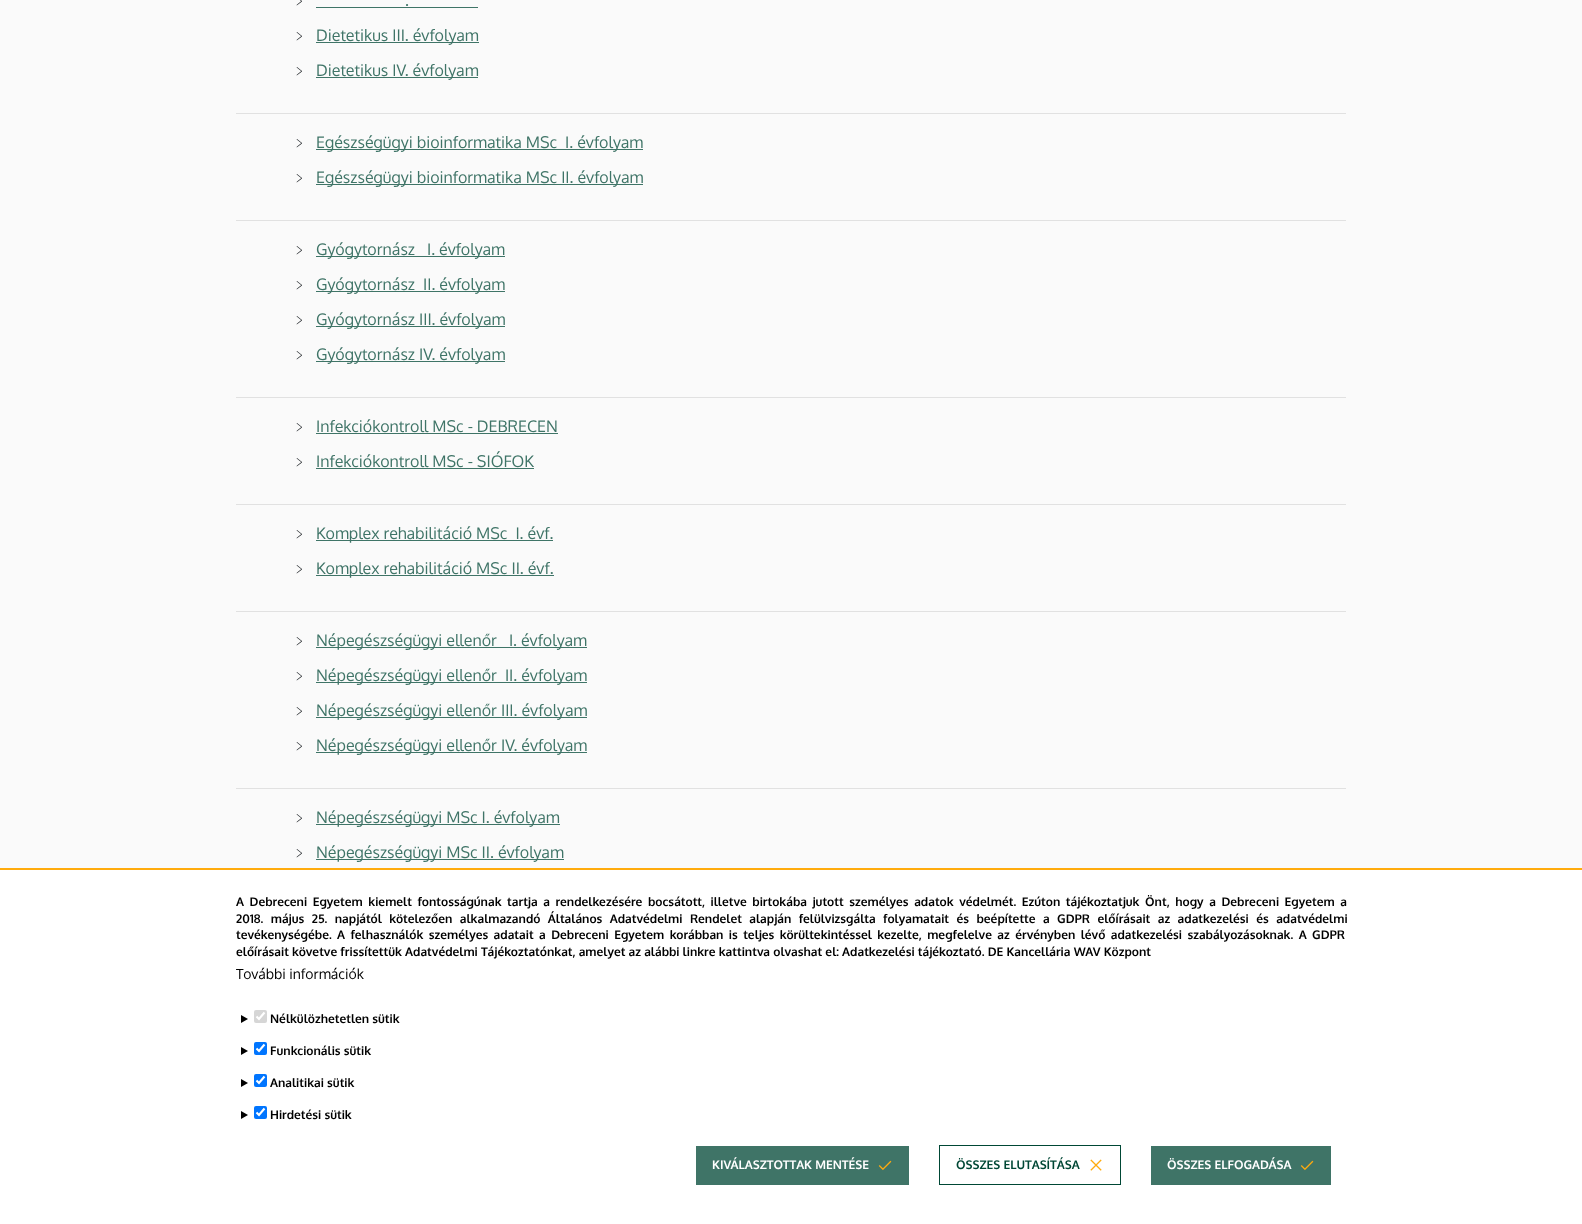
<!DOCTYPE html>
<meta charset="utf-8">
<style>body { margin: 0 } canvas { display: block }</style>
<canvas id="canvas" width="1582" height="1224"></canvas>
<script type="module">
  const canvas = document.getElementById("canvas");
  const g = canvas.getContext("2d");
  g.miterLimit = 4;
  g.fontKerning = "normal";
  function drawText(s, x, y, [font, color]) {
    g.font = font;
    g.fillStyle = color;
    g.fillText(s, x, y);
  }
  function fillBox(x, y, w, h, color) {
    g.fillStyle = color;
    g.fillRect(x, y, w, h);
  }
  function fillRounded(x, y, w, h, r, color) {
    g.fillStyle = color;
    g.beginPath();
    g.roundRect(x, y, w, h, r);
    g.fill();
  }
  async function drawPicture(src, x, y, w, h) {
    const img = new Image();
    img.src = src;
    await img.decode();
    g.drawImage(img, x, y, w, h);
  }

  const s1 = ["500 16px WenQuanYi Zen Hei", "#212529"];
  const s2 = ["16px Oxygen", "#3F7467"];
  const s3 = ["bold 12px Oxygen", "#000000"];
  const s4 = ["14px Oxygen", "#000000"];
  const s5 = ["bold 12px Oxygen", "#FFFFFF"];
  const s6 = ["bold 12px Oxygen", "#004735"];

  fillBox(0, 0, 1582, 1224, "#FAFAFA");
  drawText("﹥", 292, 6, s1);
  drawText(".", 405, 6, s2);
  fillBox(316, 7, 162, 1, "#3F7467");
  drawText("﹥", 292, 41, s1);
  fillBox(316, 42, 163, 1, "#3F7467");
  drawText("Dietetikus III. évfolyam", 316, 41, s2);
  drawText("﹥", 292, 76, s1);
  fillBox(316, 77, 162, 1, "#3F7467");
  drawText("Dietetikus IV. évfolyam", 316, 76, s2);
  fillBox(236, 113, 1110, 1, "#E1E1E1");
  drawText("﹥", 292, 148, s1);
  fillBox(316, 149, 327, 1, "#3F7467");
  drawText("Egészségügyi bioinformatika MSc  I. évfolyam", 316, 148, s2);
  drawText("﹥", 292, 183, s1);
  fillBox(316, 184, 327, 1, "#3F7467");
  drawText("Egészségügyi bioinformatika MSc II. évfolyam", 316, 183, s2);
  fillBox(236, 220, 1110, 1, "#E1E1E1");
  drawText("﹥", 292, 255, s1);
  fillBox(316, 256, 189, 1, "#3F7467");
  drawText("Gyógytornász   I. évfolyam", 316, 255, s2);
  drawText("﹥", 292, 290, s1);
  fillBox(316, 291, 189, 1, "#3F7467");
  drawText("Gyógytornász  II. évfolyam", 316, 290, s2);
  drawText("﹥", 292, 325, s1);
  fillBox(316, 326, 189, 1, "#3F7467");
  drawText("Gyógytornász III. évfolyam", 316, 325, s2);
  drawText("﹥", 292, 360, s1);
  fillBox(316, 361, 189, 1, "#3F7467");
  drawText("Gyógytornász IV. évfolyam", 316, 360, s2);
  fillBox(236, 397, 1110, 1, "#E1E1E1");
  drawText("﹥", 292, 432, s1);
  drawText("Infekciókontroll MSc - DEBRECEN", 316, 432, s2);
  fillBox(316, 433, 242, 1, "#3F7467");
  drawText("﹥", 292, 467, s1);
  drawText("Infekciókontroll MSc - SIÓFOK", 316, 467, s2);
  fillBox(316, 468, 218, 1, "#3F7467");
  fillBox(236, 504, 1110, 1, "#E1E1E1");
  drawText("﹥", 292, 539, s1);
  fillBox(316, 540, 237, 1, "#3F7467");
  drawText("Komplex rehabilitáció MSc  I. évf.", 316, 539, s2);
  drawText("﹥", 292, 574, s1);
  fillBox(316, 575, 238, 1, "#3F7467");
  drawText("Komplex rehabilitáció MSc II. évf.", 316, 574, s2);
  fillBox(236, 611, 1110, 1, "#E1E1E1");
  drawText("﹥", 292, 646, s1);
  fillBox(316, 647, 271, 1, "#3F7467");
  drawText("Népegészségügyi ellenőr   I. évfolyam", 316, 646, s2);
  drawText("﹥", 292, 681, s1);
  fillBox(316, 682, 271, 1, "#3F7467");
  drawText("Népegészségügyi ellenőr  II. évfolyam", 316, 681, s2);
  drawText("﹥", 292, 716, s1);
  fillBox(316, 717, 271, 1, "#3F7467");
  drawText("Népegészségügyi ellenőr III. évfolyam", 316, 716, s2);
  drawText("﹥", 292, 751, s1);
  fillBox(316, 752, 271, 1, "#3F7467");
  drawText("Népegészségügyi ellenőr IV. évfolyam", 316, 751, s2);
  fillBox(236, 788, 1110, 1, "#E1E1E1");
  drawText("﹥", 292, 823, s1);
  fillBox(316, 824, 244, 1, "#3F7467");
  drawText("Népegészségügyi MSc I. évfolyam", 316, 823, s2);
  drawText("﹥", 292, 858, s1);
  fillBox(316, 859, 248, 1, "#3F7467");
  drawText("Népegészségügyi MSc II. évfolyam", 316, 858, s2);
  fillBox(0, 870, 1582, 354, "#FFFFFF");
  fillBox(0, 868, 1582, 2, "#FFAB0D");
  g.wordSpacing = "2.4px";
  drawText("A Debreceni Egyetem kiemelt fontosságúnak tartja a rendelkezésére bocsátott, illetve birtokába jutott személyes adatok védelmét. Ezúton tájékoztatjuk Önt, hogy a Debreceni Egyetem a", 236, 906, s3);
  g.wordSpacing = "4.25px";
  drawText("2018. május 25. napjától kötelezően alkalmazandó Általános Adatvédelmi Rendelet alapján felülvizsgálta folyamatait és beépítette a GDPR előírásait az adatkezelési és adatvédelmi", 236, 923, s3);
  g.wordSpacing = "2.25px";
  drawText("tevékenységébe. A felhasználók személyes adatait a Debreceni Egyetem korábban is teljes körültekintéssel kezelte, megfelelve az érvényben lévő adatkezelési szabályozásoknak. A GDPR", 236, 939, s3);
  g.wordSpacing = "0px";
  drawText("előírásait követve frissítettük Adatvédelmi Tájékoztatónkat, amelyet az alábbi linkre kattintva olvashat el: Adatkezelési tájékoztató. DE Kancellária WAV Központ", 236, 956, s3);
  drawText("További információk", 236, 979, s4);
  g.beginPath();
  g.moveTo(241, 1015);
  g.lineTo(248, 1019);
  g.lineTo(241, 1023);
  g.closePath();
  g.fill();
  fillRounded(254, 1010, 13, 13, 2, "#D6D6D6");
  g.beginPath();
  g.moveTo(256.5, 1016.5);
  g.lineTo(259, 1019);
  g.lineTo(264.5, 1012.5);
  g.strokeStyle = "#FFFFFF";
  g.lineWidth = 2.1;
  g.stroke();
  drawText("Nélkülözhetetlen sütik", 270, 1023, s3);
  g.beginPath();
  g.moveTo(241, 1047);
  g.lineTo(248, 1051);
  g.lineTo(241, 1055);
  g.closePath();
  g.fill();
  fillRounded(254, 1042, 13, 13, 2, "#0075FF");
  g.beginPath();
  g.moveTo(256.5, 1048.5);
  g.lineTo(259, 1051);
  g.lineTo(264.5, 1044.5);
  g.stroke();
  drawText("Funkcionális sütik", 270, 1055, s3);
  g.beginPath();
  g.moveTo(241, 1079);
  g.lineTo(248, 1083);
  g.lineTo(241, 1087);
  g.closePath();
  g.fill();
  fillRounded(254, 1074, 13, 13, 2, "#0075FF");
  g.beginPath();
  g.moveTo(256.5, 1080.5);
  g.lineTo(259, 1083);
  g.lineTo(264.5, 1076.5);
  g.stroke();
  drawText("Analitikai sütik", 270, 1087, s3);
  g.beginPath();
  g.moveTo(241, 1111);
  g.lineTo(248, 1115);
  g.lineTo(241, 1119);
  g.closePath();
  g.fill();
  fillRounded(254, 1106, 13, 13, 2, "#0075FF");
  g.beginPath();
  g.moveTo(256.5, 1112.5);
  g.lineTo(259, 1115);
  g.lineTo(264.5, 1108.5);
  g.stroke();
  drawText("Hirdetési sütik", 270, 1119, s3);
  fillBox(696, 1146, 213, 39, "#3F7467");
  drawText("KIVÁLASZTOTTAK MENTÉSE", 712, 1169, s5);
  await drawPicture("pic1.png", 878, 1160, 14, 11);
  g.strokeStyle = "#004735";
  g.lineWidth = 1;
  g.strokeRect(939.5, 1145.5, 181, 39);
  drawText("ÖSSZES ELUTASÍTÁSA", 956, 1169, s6);
  await drawPicture("pic2.png", 1090, 1159, 12, 12);
  fillBox(1151, 1146, 180, 39, "#3F7467");
  drawText("ÖSSZES ELFOGADÁSA", 1167, 1169, s5);
  await drawPicture("pic1.png", 1300, 1160, 14, 11);
</script>
